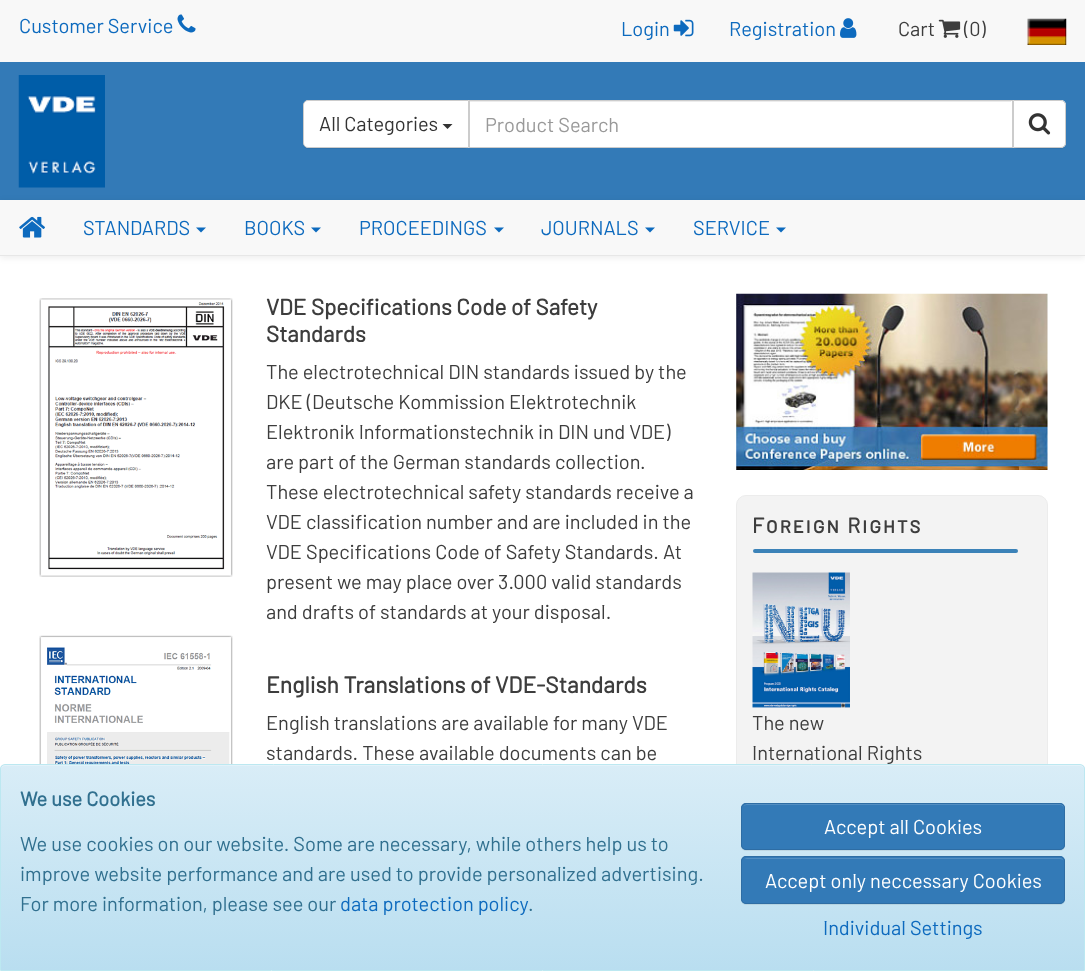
<!DOCTYPE html>
<meta charset="utf-8">
<style>body { margin: 0 } canvas { display: block }</style>
<canvas id="canvas" width="1085" height="971"></canvas>
<script type="module">
  const canvas = document.getElementById("canvas");
  const g = canvas.getContext("2d");
  g.miterLimit = 4;
  g.fontKerning = "normal";
  function drawText(s, x, y, [font, color]) {
    g.font = font;
    g.fillStyle = color;
    g.fillText(s, x, y);
  }
  function fillBox(x, y, w, h, color) {
    g.fillStyle = color;
    g.fillRect(x, y, w, h);
  }
  function fillRounded(x, y, w, h, r, color) {
    g.fillStyle = color;
    g.beginPath();
    g.roundRect(x, y, w, h, r);
    g.fill();
  }
  async function drawPicture(src, x, y, w, h) {
    const img = new Image();
    img.src = src;
    await img.decode();
    g.drawImage(img, x, y, w, h);
  }
  let gradient;

  const s1 = ["20px Barlow", "#0D6ABE"];
  const s2 = ["20px Barlow", "#3D3D3D"];
  const s3 = ["20px Barlow", "#333333"];
  const s4 = ["20px Barlow", "#999999"];
  const s5 = ["bold 22.5px Barlow", "#3D3D3D"];
  const s6 = ["bold 22.9px Barlow", "#3D3D3D"];
  const s7 = ["bold 21.25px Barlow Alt", "#3D3D3D"];
  const s8 = ["bold 20px Barlow", "#31708F"];
  const s9 = ["20px Barlow", "#31708F"];
  const s10 = ["20px Barlow", "#FFFFFF"];

  fillBox(0, 0, 1085, 971, "#FFFFFF");
  fillBox(0, 0, 1085, 62, "#F8F8F8");
  drawText("Customer Service", 19, 33, s1);
  await drawPicture("pic1.png", 177, 14, 19, 19);
  drawText("Login", 621, 36, s1);
  await drawPicture("pic2.png", 673, 19, 21, 18);
  drawText("Registration", 729, 36, s1);
  await drawPicture("pic3.png", 840, 18, 17, 20);
  drawText("Cart", 898, 36, s2);
  await drawPicture("pic4.png", 938, 19, 23, 19);
  drawText("(0)", 964, 36, s2);
  await drawPicture("pic5.png", 1027, 18, 40, 27);
  fillBox(0, 62, 1085, 138, "#337AB7");
  await drawPicture("pic6.png", 18, 75, 87, 113);
  fillRounded(304, 100, 762, 48, 5, "#FFFFFF");
  fillBox(470, 101, 541, 1, "#ECECEC");
  g.strokeStyle = "#CCCCCC";
  g.strokeRect(469.5, 100.5, 543, 47);
  g.fillStyle = "rgba(0, 0, 0, 0.07)";
  g.filter = "blur(0.5px)";
  g.beginPath();
  g.roundRect(303, 101, 166, 48, 5);
  g.fill();
  g.filter = "none";
  g.fillStyle = "#FFFFFF";
  g.beginPath();
  g.roundRect(303.5, 100.5, 165, 47, [4.5, 0, 0, 4.5]);
  g.fill();
  g.stroke();
  drawText("All Categories", 319, 131, s3);
  g.beginPath();
  g.moveTo(442.5, 124);
  g.lineTo(452.5, 124);
  g.lineTo(447.5, 129);
  g.closePath();
  g.fill();
  drawText("Product Search", 485, 132, s4);
  g.fillStyle = "rgba(0, 0, 0, 0.07)";
  g.filter = "blur(0.5px)";
  g.beginPath();
  g.roundRect(1013, 101, 53, 48, 5);
  g.fill();
  g.filter = "none";
  g.fillStyle = "#FFFFFF";
  g.beginPath();
  g.roundRect(1013.5, 100.5, 52, 47, [0, 4.5, 4.5, 0]);
  g.fill();
  g.stroke();
  await drawPicture("pic7.png", 1028, 113, 23, 22);
  g.fillStyle = "rgba(0, 0, 0, 0.07)";
  g.filter = "blur(3px)";
  g.beginPath();
  g.rect(0, 201, 1085, 57);
  g.fill();
  g.filter = "none";
  fillBox(0, 255, 1085, 1, "#E7E7E7");
  fillBox(0, 200, 1085, 55, "#F8F8F8");
  await drawPicture("pic8.png", 19, 216, 26, 22);
  drawText("STANDARDS", 83, 235, s1);
  g.beginPath();
  g.moveTo(196, 227.5);
  g.lineTo(206, 227.5);
  g.lineTo(201, 232.5);
  g.closePath();
  g.fill();
  drawText("BOOKS", 244, 235, s1);
  g.beginPath();
  g.moveTo(311, 227.5);
  g.lineTo(321, 227.5);
  g.lineTo(316, 232.5);
  g.closePath();
  g.fill();
  drawText("PROCEEDINGS", 359, 235, s1);
  g.beginPath();
  g.moveTo(494, 227.5);
  g.lineTo(504, 227.5);
  g.lineTo(499, 232.5);
  g.closePath();
  g.fill();
  drawText("JOURNALS", 541, 235, s1);
  g.beginPath();
  g.moveTo(645, 227.5);
  g.lineTo(655, 227.5);
  g.lineTo(650, 232.5);
  g.closePath();
  g.fill();
  drawText("SERVICE", 693, 235, s1);
  g.beginPath();
  g.moveTo(776, 227.5);
  g.lineTo(786, 227.5);
  g.lineTo(781, 232.5);
  g.closePath();
  g.fill();
  await drawPicture("pic9.png", 39, 298, 194, 279);
  await drawPicture("pic10.png", 39, 635, 194, 129);
  drawText("VDE Specifications Code of Safety", 266, 315, s5);
  drawText("Standards", 266, 342, s5);
  drawText("The electrotechnical DIN standards issued by the", 266, 379, s2);
  drawText("DKE (Deutsche Kommission Elektrotechnik", 266, 409, s2);
  drawText("Elektronik Informationstechnik in DIN und VDE)", 266, 439, s2);
  drawText("are part of the German standards collection.", 266, 469, s2);
  drawText("These electrotechnical safety standards receive a", 266, 499, s2);
  drawText("VDE classification number and are included in the", 266, 529, s2);
  drawText("VDE Specifications Code of Safety Standards. At", 266, 559, s2);
  drawText("present we may place over 3.000 valid standards", 266, 589, s2);
  drawText("and drafts of standards at your disposal.", 266, 619, s2);
  drawText("English Translations of VDE-Standards", 266, 693, s6);
  drawText("English translations are available for many VDE", 266, 730, s2);
  drawText("standards. These available documents can be", 266, 760, s2);
  await drawPicture("pic11.png", 736, 293, 312, 177);
  g.fillStyle = "#F3F3F3";
  g.beginPath();
  g.roundRect(736.5, 495.5, 311, 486, 9.5);
  g.fill();
  g.strokeStyle = "#ECECEC";
  g.stroke();
  g.letterSpacing = "2.1px";
  drawText("Foreign Rights", 752, 533, s7);
  fillRounded(753, 549, 265, 4, 2, "#3B82B8");
  await drawPicture("pic12.png", 752, 572, 98, 136);
  g.letterSpacing = "0px";
  drawText("The new", 752, 730, s2);
  drawText("International Rights", 752, 760, s2);
  g.save();
  g.beginPath();
  g.roundRect(0, 764, 1085, 207, [5, 5, 0, 0]);
  g.clip();
  gradient = g.createLinearGradient(543, 765, 543, 970);
  gradient.addColorStop(0, "#D9EDF7");
  gradient.addColorStop(1, "#B9DEF0");
  g.fillStyle = gradient;
  g.fillRect(0, 765, 1085, 205);
  g.restore();
  g.fillStyle = "#E3F2F9";
  g.beginPath();
  g.moveTo(5, 766);
  g.lineTo(1080, 766);
  g.bezierCurveTo(1082, 766, 1084, 768, 1084, 770);
  g.bezierCurveTo(1084, 767, 1083, 765, 1080, 765);
  g.lineTo(5, 765);
  g.bezierCurveTo(2, 765, 1, 767, 1, 770);
  g.bezierCurveTo(1, 768, 3, 766, 5, 766);
  g.closePath();
  g.fill();
  g.beginPath();
  g.roundRect(0.5, 764.5, 1084, 206, [4.5, 4.5, 0, 0]);
  g.strokeStyle = "#BCE8F1";
  g.stroke();
  drawText("We use Cookies", 20, 806, s8);
  drawText("We use cookies on our website. Some are necessary, while others help us to", 20, 851, s9);
  drawText("improve website performance and are used to provide personalized advertising.", 20, 881, s9);
  drawText("For more information, please see our", 20, 911, s9);
  drawText("data protection policy", 340, 911, s1);
  drawText(".", 528, 911, s9);
  g.fillStyle = "rgba(0, 0, 0, 0.07)";
  g.filter = "blur(0.5px)";
  g.beginPath();
  g.roundRect(741, 804, 324, 47, 5);
  g.fill();
  g.filter = "none";
  fillRounded(741, 803, 324, 47, 5, "#337AB7");
  g.fillStyle = "#528EC2";
  g.beginPath();
  g.moveTo(746, 805);
  g.lineTo(1060, 805);
  g.bezierCurveTo(1062, 805, 1064, 807, 1064, 809);
  g.lineTo(1064, 808);
  g.bezierCurveTo(1064, 806, 1062, 804, 1060, 804);
  g.lineTo(747, 804);
  g.bezierCurveTo(746, 804, 744, 805, 744, 806);
  g.closePath();
  g.fill();
  g.beginPath();
  g.roundRect(741.5, 803.5, 323, 46, 4.5);
  g.strokeStyle = "#2E6DA4";
  g.stroke();
  drawText("Accept all Cookies", 824, 834, s10);
  g.fillStyle = "rgba(0, 0, 0, 0.07)";
  g.filter = "blur(0.5px)";
  g.beginPath();
  g.roundRect(741, 858, 324, 47, 5);
  g.fill();
  g.filter = "none";
  fillRounded(741, 856, 324, 48, 5, "#337AB7");
  g.fillStyle = "#528EC2";
  g.beginPath();
  g.moveTo(746, 859);
  g.lineTo(1060, 859);
  g.bezierCurveTo(1062, 859, 1064, 860, 1064, 862);
  g.bezierCurveTo(1064, 860, 1062, 858, 1060, 858);
  g.lineTo(747, 858);
  g.bezierCurveTo(746, 858, 745, 859, 744, 859);
  g.closePath();
  g.fill();
  g.beginPath();
  g.roundRect(741.5, 856.5, 323, 47, 4.5);
  g.stroke();
  drawText("Accept only neccessary Cookies", 765, 888, s10);
  drawText("Individual Settings", 823, 935, s1);
</script>
